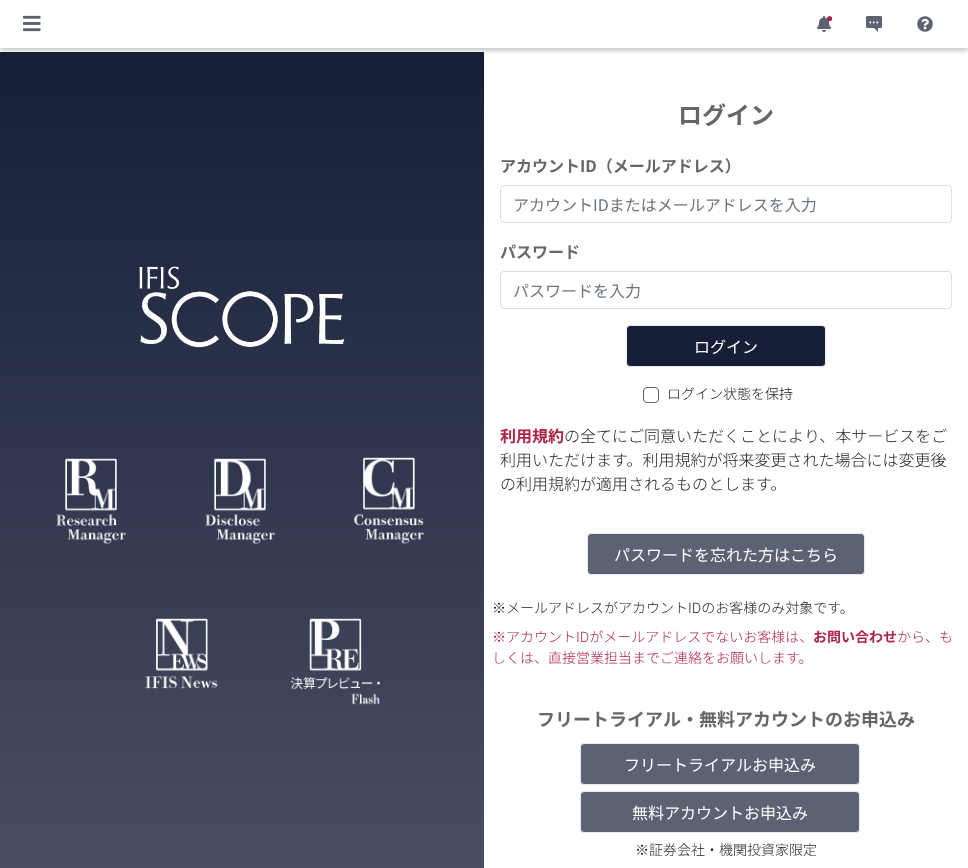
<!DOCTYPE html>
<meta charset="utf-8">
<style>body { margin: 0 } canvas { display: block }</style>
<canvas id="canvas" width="968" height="868"></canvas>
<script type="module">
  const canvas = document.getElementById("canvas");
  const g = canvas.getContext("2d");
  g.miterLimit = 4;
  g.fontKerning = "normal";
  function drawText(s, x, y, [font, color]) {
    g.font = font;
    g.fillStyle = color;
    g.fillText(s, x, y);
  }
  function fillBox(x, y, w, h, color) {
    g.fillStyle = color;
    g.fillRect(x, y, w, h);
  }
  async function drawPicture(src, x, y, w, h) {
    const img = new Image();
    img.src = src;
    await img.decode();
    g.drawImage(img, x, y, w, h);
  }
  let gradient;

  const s1 = ["bold 12px Liberation Serif", "#AF2346"];
  const s2 = ["bold 24px Noto Sans JP", "#666666"];
  const s3 = ["bold 16px Noto Sans JP", "#666666"];
  const s4 = ["16px Noto Sans JP", "#6C757D"];
  const s5 = ["16px Noto Sans JP", "#FFFFFF"];
  const s6 = ["300 14px Noto Sans JP", "#212121"];
  const s7 = ["bold 16px Noto Sans JP", "#AF2346"];
  const s8 = ["300 16px Noto Sans JP", "#212121"];
  const s9 = ["300 14px Noto Sans JP", "#AF2346"];
  const s10 = ["bold 14px Noto Sans JP", "#AF2346"];
  const s11 = ["bold 18px Noto Sans JP", "#666666"];

  fillBox(0, 0, 968, 868, "#FFFFFF");
  gradient = g.createLinearGradient(242, 52, 242, 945);
  gradient.addColorStop(0, "#171F38");
  gradient.addColorStop(1, "#4C5367");
  g.fillStyle = gradient;
  g.fillRect(0, 52, 484, 816);
  g.save();
  g.beginPath();
  g.rect(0, 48, 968, 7);
  g.clip();
  g.fillStyle = "rgba(0, 0, 0, 0.12)";
  g.filter = "blur(5px)";
  g.beginPath();
  g.rect(0, 2, 968, 48);
  g.fill();
  g.filter = "none";
  g.restore();
  g.save();
  g.beginPath();
  g.rect(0, 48, 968, 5);
  g.clip();
  g.fillStyle = "rgba(0, 0, 0, 0.16)";
  g.filter = "blur(2.5px)";
  g.beginPath();
  g.rect(0, 2, 968, 48);
  g.fill();
  g.filter = "none";
  g.restore();
  await drawPicture("pic1.png", 23, 15, 18, 17);
  await drawPicture("pic2.png", 817, 16, 14, 16);
  drawText("●", 826, 22, s1);
  await drawPicture("pic3.png", 866, 16, 16, 16);
  await drawPicture("pic4.png", 869, 21, 10, 3);
  await drawPicture("pic5.png", 917, 16, 16, 16);
  await drawPicture("pic6.png", 139, 266, 206, 82);
  await drawPicture("pic7.png", 56, 458, 70, 87);
  await drawPicture("pic8.png", 205, 458, 70, 87);
  await drawPicture("pic9.png", 354, 457, 70, 87);
  await drawPicture("pic10.png", 145, 618, 73, 71);
  await drawPicture("pic11.png", 290, 618, 91, 87);
  drawText("ログイン", 678, 124, s2);
  drawText("アカウントID（メールアドレス）", 500, 172, s3);
  g.beginPath();
  g.roundRect(500.5, 185.5, 451, 37, 3.5);
  g.strokeStyle = "#DCDDE3";
  g.stroke();
  drawText("アカウントIDまたはメールアドレスを入力", 513, 211, s4);
  drawText("パスワード", 500, 258, s3);
  g.beginPath();
  g.roundRect(500.5, 271.5, 451, 37, 3.5);
  g.stroke();
  drawText("パスワードを入力", 513, 297, s4);
  g.fillStyle = "#171F38";
  g.beginPath();
  g.roundRect(626.5, 325.5, 199, 41, 3.5);
  g.fill();
  g.strokeStyle = "#E9E9F0";
  g.stroke();
  drawText("ログイン", 694, 353, s5);
  g.beginPath();
  g.roundRect(643.5, 387.5, 15, 15, 3.5);
  g.strokeStyle = "#5C6173";
  g.stroke();
  drawText("ログイン状態を保持", 667, 399, s6);
  drawText("利用規約", 500, 442, s7);
  drawText("の全てにご同意いただくことにより、本サービスをご", 564, 442, s8);
  drawText("利用いただけます。利用規約が将来変更された場合には変更後", 500, 466, s8);
  drawText("の利用規約が適用されるものとします。", 500, 490, s8);
  g.fillStyle = "#5C6173";
  g.beginPath();
  g.roundRect(587.5, 533.5, 277, 41, 3.5);
  g.fill();
  g.strokeStyle = "#E9E9F0";
  g.stroke();
  drawText("パスワードを忘れた方はこちら", 614, 561, s5);
  drawText("※メールアドレスがアカウントIDのお客様のみ対象です。", 492, 613, s6);
  drawText("※アカウントIDがメールアドレスでないお客様は、", 492, 642, s9);
  drawText("お問い合わせ", 813, 642, s10);
  drawText("から、も", 897, 642, s9);
  drawText("しくは、直接営業担当までご連絡をお願いします。", 492, 663, s9);
  drawText("フリートライアル・無料アカウントのお申込み", 537, 726, s11);
  g.fillStyle = "#5C6173";
  g.beginPath();
  g.roundRect(580.5, 743.5, 279, 41, 3.5);
  g.fill();
  g.stroke();
  drawText("フリートライアルお申込み", 624, 771, s5);
  g.fillStyle = "#5C6173";
  g.beginPath();
  g.roundRect(580.5, 791.5, 279, 41, 3.5);
  g.fill();
  g.stroke();
  drawText("無料アカウントお申込み", 632, 819, s5);
  drawText("※証券会社・機関投資家限定", 635, 855, s6);
</script>
